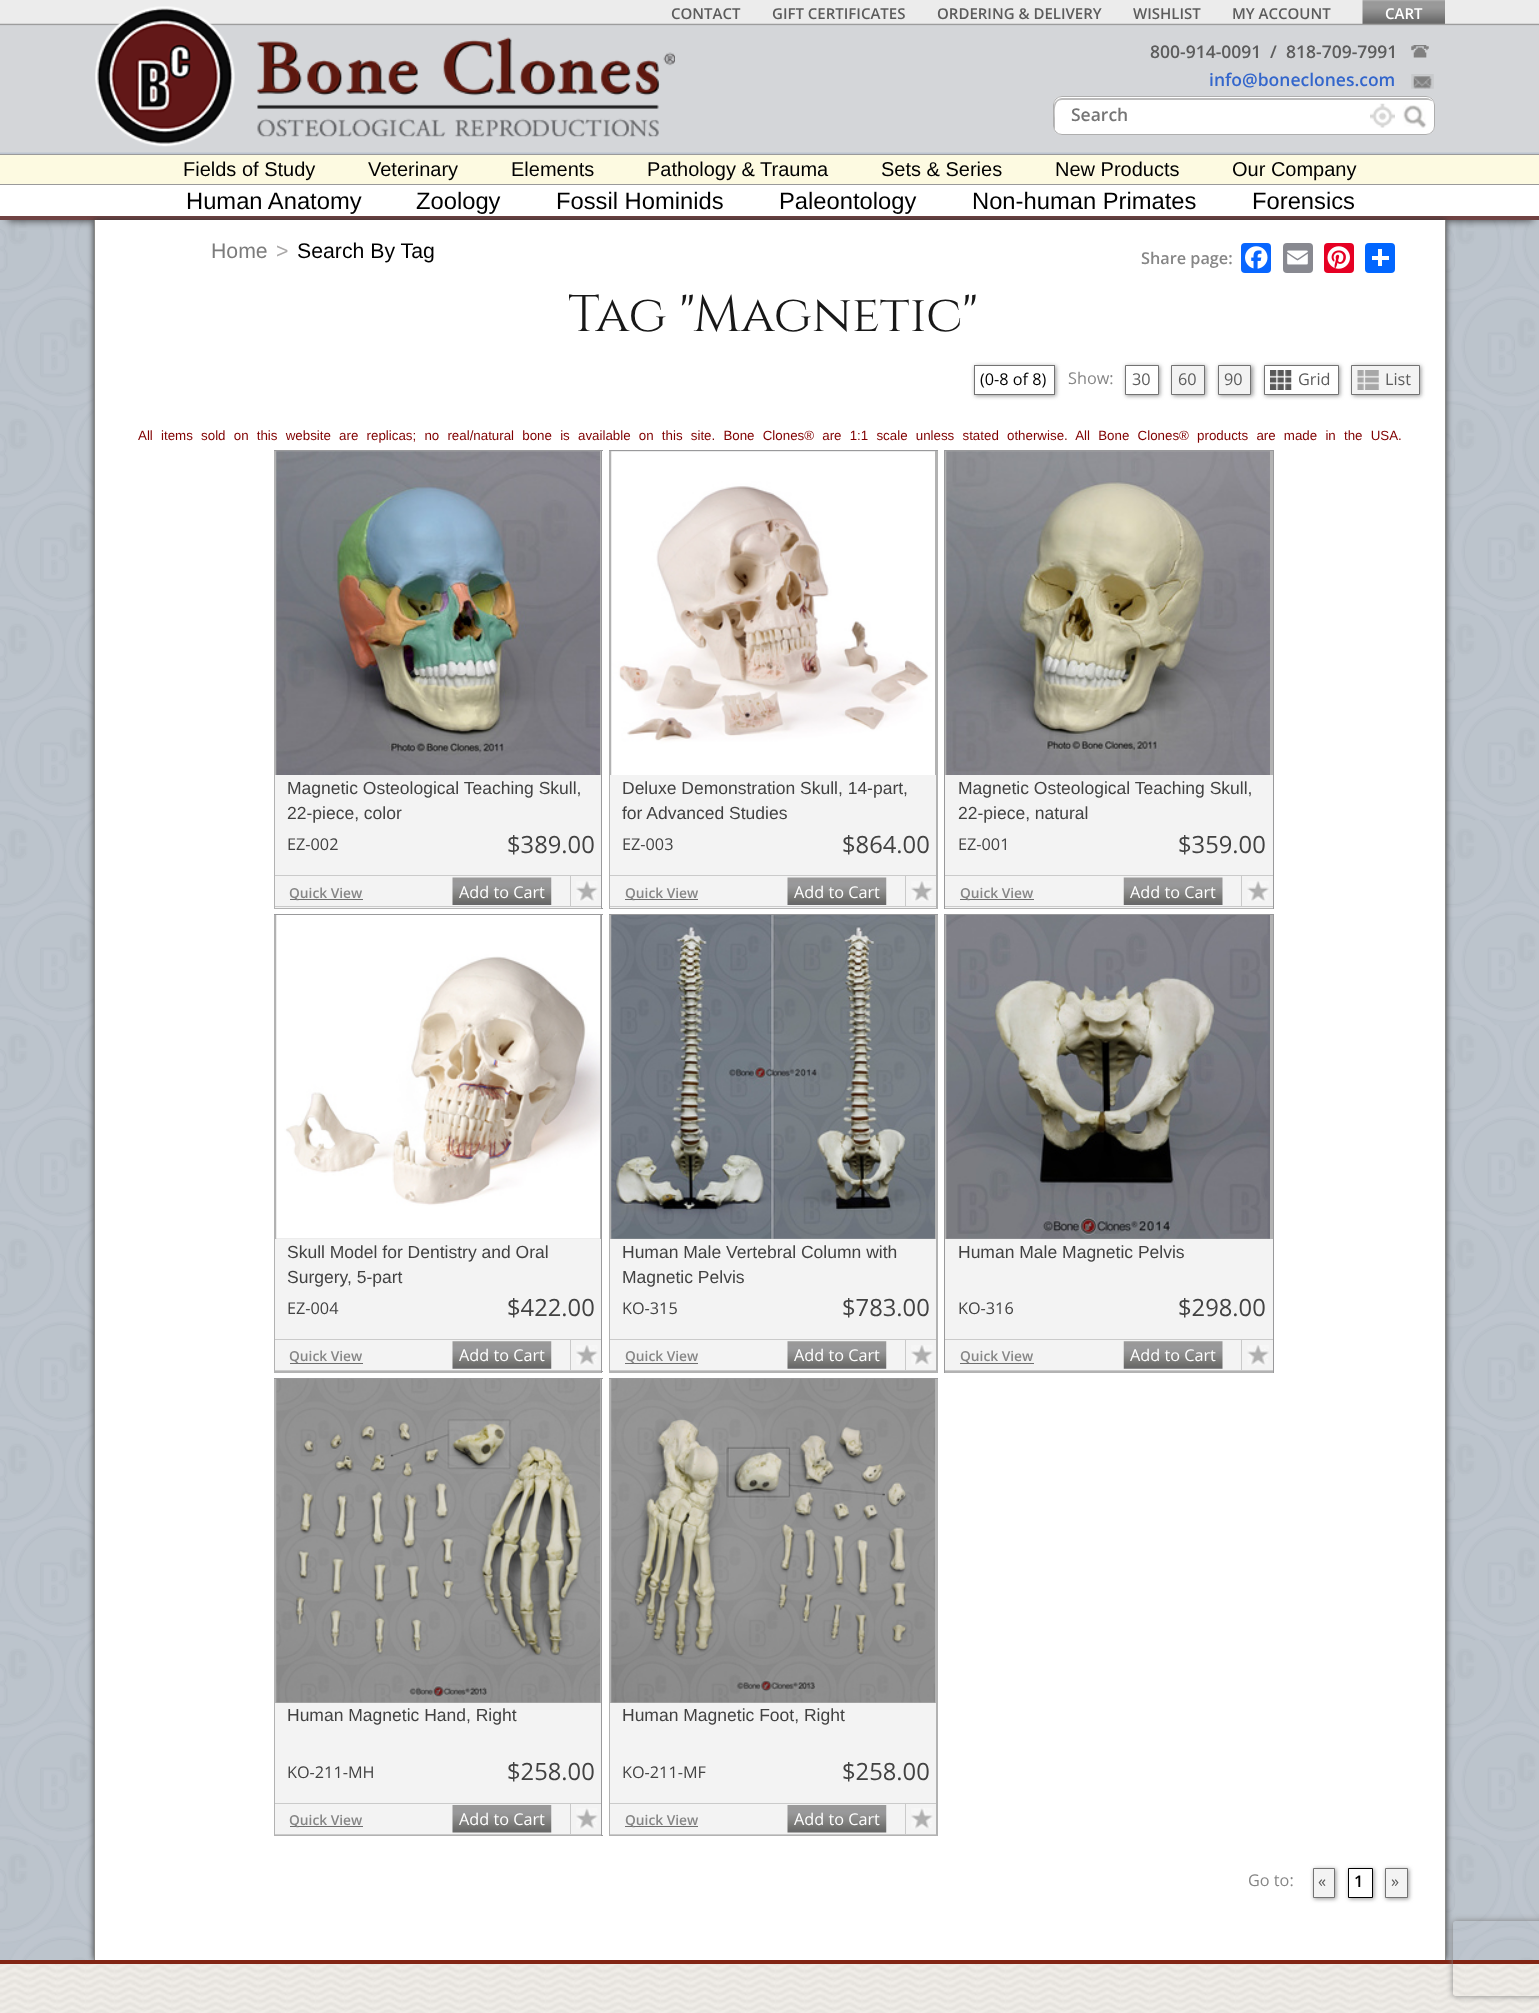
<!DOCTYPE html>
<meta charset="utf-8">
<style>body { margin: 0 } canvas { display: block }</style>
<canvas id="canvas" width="1539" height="2013"></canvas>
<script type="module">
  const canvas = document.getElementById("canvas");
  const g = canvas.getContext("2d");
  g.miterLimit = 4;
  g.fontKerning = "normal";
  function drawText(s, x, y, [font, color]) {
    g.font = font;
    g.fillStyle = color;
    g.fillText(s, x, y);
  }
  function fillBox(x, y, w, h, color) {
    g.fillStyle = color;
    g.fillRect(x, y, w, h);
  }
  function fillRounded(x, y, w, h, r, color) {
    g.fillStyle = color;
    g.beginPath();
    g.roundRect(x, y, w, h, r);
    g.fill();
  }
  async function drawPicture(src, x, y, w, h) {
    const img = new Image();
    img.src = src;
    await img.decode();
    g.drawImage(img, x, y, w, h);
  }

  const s1 = ["600 15px Open Sans", "#5C5C5C"];
  const s2 = ["600 15px Open Sans", "#FFFFFF"];
  const s3 = ["600 17.5px Open Sans", "#5C5C5C"];
  const s4 = ["600 17.5px Open Sans", "#3366CC"];
  const s5 = ["600 17.5px Open Sans", "#757575"];
  const s6 = ["20px Liberation Sans", "#000000"];
  const s7 = ["23.75px Liberation Sans", "#000000"];
  const s8 = ["21.25px Liberation Sans", "#7C7C7C"];
  const s9 = ["21.25px Liberation Sans", "#AAA8A8"];
  const s10 = ["21.25px Liberation Sans", "#000000"];
  const s11 = ["600 16.25px Open Sans", "#868686"];
  const s12 = ["51.25px Cinzel", "#181818"];
  const s13 = ["16.25px Open Sans", "#000000"];
  const s14 = ["16.25px Open Sans", "#868686"];
  const s15 = ["16.25px Open Sans", "#5C5C5C"];
  const s16 = ["13.33px Liberation Sans", "#800000"];
  const s17 = ["17.5px Liberation Sans", "#424242"];
  const s18 = ["16.25px Open Sans", "#424242"];
  const s19 = ["23.75px Open Sans", "#424242"];
  const s20 = ["600 13.75px Open Sans", "#868686"];
  const s21 = ["16.25px Open Sans", "#FFFFFF"];
  const s22 = ["600 16.25px Open Sans", "#000000"];

  fillBox(0, 0, 1539, 2013, "#FFFFFF");
  await drawPicture("pic1.png", 0, 220, 1539, 1740);
  g.fillStyle = "#333333";
  g.filter = "blur(4px)";
  g.beginPath();
  g.rect(8, 15, 1525, 205);
  g.fill();
  g.filter = "none";
  fillBox(0, 152, 1539, 2, "#BDC4CF");
  await drawPicture("pic2.png", 0, 0, 1539, 153);
  fillBox(0, 216, 1539, 4, "#704242");
  await drawPicture("pic3.png", 95, 6, 140, 141);
  await drawPicture("pic4.png", 257, 37, 418, 100);
  drawText("CONTACT", 671, 19, s1);
  drawText("GIFT CERTIFICATES", 772, 19, s1);
  drawText("ORDERING & DELIVERY", 937, 19, s1);
  drawText("WISHLIST", 1133, 19, s1);
  drawText("MY ACCOUNT", 1232, 19, s1);
  await drawPicture("pic5.png", 1362, 0, 83, 24);
  drawText("CART", 1385, 19, s2);
  drawText("800-914-0091", 1150, 58, s3);
  drawText("/", 1270, 58, s3);
  drawText("818-709-7991", 1286, 58, s3);
  await drawPicture("pic6.png", 1411, 45, 18, 13);
  drawText("info@boneclones.com", 1209, 86, s4);
  await drawPicture("pic7.png", 1411, 74, 23, 15);
  fillRounded(1053, 96, 382, 39, 9, "#FFFFFF");
  g.fillStyle = "#BBBBBB";
  g.beginPath();
  g.moveTo(1062, 100);
  g.lineTo(1428, 100);
  g.bezierCurveTo(1430, 100, 1432, 101, 1433, 102);
  g.bezierCurveTo(1432, 100, 1429, 98, 1426, 98);
  g.lineTo(1062, 98);
  g.bezierCurveTo(1058, 98, 1054, 102, 1054, 106);
  g.lineTo(1054, 126);
  g.bezierCurveTo(1054, 127, 1054, 129, 1055, 130);
  g.lineTo(1055, 118);
  g.bezierCurveTo(1055, 113, 1053, 100, 1062, 100);
  g.closePath();
  g.fill();
  g.beginPath();
  g.roundRect(1053.5, 96.5, 381, 38, 8.5);
  g.strokeStyle = "#AEAEAE";
  g.stroke();
  drawText("Search", 1071, 121, s5);
  await drawPicture("pic8.png", 1370, 103, 25, 25);
  await drawPicture("pic9.png", 1403, 105, 24, 23);
  fillBox(0, 155, 1539, 29, "#FDFAE1");
  fillBox(0, 154, 1539, 1, "#9A9A9A");
  drawText("Fields of Study", 183, 176, s6);
  drawText("Veterinary", 368, 176, s6);
  drawText("Elements", 511, 176, s6);
  drawText("Pathology & Trauma", 647, 176, s6);
  drawText("Sets & Series", 881, 176, s6);
  drawText("New Products", 1055, 176, s6);
  drawText("Our Company", 1232, 176, s6);
  g.fillStyle = "#333333";
  g.filter = "blur(3px)";
  g.beginPath();
  g.rect(94, 220, 1352, 1740);
  g.fill();
  g.filter = "none";
  fillBox(0, 185, 1539, 31, "#FFFFFF");
  fillBox(0, 184, 1539, 1, "#9A9A9A");
  drawText("Human Anatomy", 186, 209, s7);
  drawText("Zoology", 416, 209, s7);
  drawText("Fossil Hominids", 556, 209, s7);
  drawText("Paleontology", 779, 209, s7);
  drawText("Non-human Primates", 972, 209, s7);
  drawText("Forensics", 1252, 209, s7);
  fillBox(95, 220, 1350, 1740, "#FFFFFF");
  fillBox(1445, 220, 1, 1740, "#888886");
  fillBox(94, 220, 1, 1740, "#888886");
  drawText("Home", 211, 258, s8);
  drawText(">", 276, 258, s9);
  drawText("Search By Tag", 297, 258, s10);
  drawText("Share page:", 1141, 264, s11);
  fillRounded(1241, 243, 30, 30, 4, "#0866FF");
  await drawPicture("pic10.png", 1245, 246, 23, 23);
  fillRounded(1283, 243, 30, 30, 4, "#888990");
  await drawPicture("pic11.png", 1287, 250, 21, 15);
  fillRounded(1324, 243, 30, 30, 4, "#E60023");
  await drawPicture("pic12.png", 1327, 246, 23, 23);
  fillRounded(1365, 243, 30, 30, 4, "#0166FF");
  fillBox(1378, 249, 4, 17, "#FFFFFF");
  fillBox(1372, 256, 17, 4, "#FFFFFF");
  drawText("Tag \"Magnetic\"", 568, 331, s12);
  g.save();
  g.beginPath();
  g.moveTo(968, 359);
  g.lineTo(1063, 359);
  g.lineTo(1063, 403);
  g.lineTo(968, 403);
  g.closePath();
  g.moveTo(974, 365);
  g.lineTo(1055, 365);
  g.lineTo(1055, 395);
  g.lineTo(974, 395);
  g.closePath();
  g.clip("evenodd");
  g.fillStyle = "#969696";
  g.filter = "blur(2px)";
  g.beginPath();
  g.rect(975, 366, 81, 30);
  g.fill();
  g.filter = "none";
  g.restore();
  g.strokeStyle = "#737373";
  g.strokeRect(974.5, 365.5, 80, 29);
  drawText("(0-8 of 8)", 980, 385, s13);
  drawText("Show:", 1068, 384, s14);
  g.fillStyle = "#969696";
  g.filter = "blur(2px)";
  g.beginPath();
  g.rect(1126, 366, 34, 30);
  g.fill();
  g.filter = "none";
  g.fillStyle = "#FFFFFF";
  g.beginPath();
  g.rect(1125.5, 365.5, 33, 29);
  g.fill();
  g.stroke();
  drawText("30", 1132, 385, s15);
  g.fillStyle = "#969696";
  g.filter = "blur(2px)";
  g.beginPath();
  g.rect(1173, 366, 33, 30);
  g.fill();
  g.filter = "none";
  g.fillStyle = "#F3F3F3";
  g.beginPath();
  g.rect(1171.5, 365.5, 33, 29);
  g.fill();
  g.stroke();
  drawText("60", 1178, 385, s15);
  g.fillStyle = "#969696";
  g.filter = "blur(2px)";
  g.beginPath();
  g.rect(1219, 366, 34, 30);
  g.fill();
  g.filter = "none";
  g.fillStyle = "#F3F3F3";
  g.beginPath();
  g.rect(1218.5, 365.5, 32, 29);
  g.fill();
  g.stroke();
  drawText("90", 1224, 385, s15);
  g.fillStyle = "#969696";
  g.filter = "blur(2px)";
  g.beginPath();
  g.rect(1265, 366, 75, 30);
  g.fill();
  g.filter = "none";
  g.fillStyle = "#FFFFFF";
  g.beginPath();
  g.rect(1264.5, 365.5, 74, 29);
  g.fill();
  g.stroke();
  await drawPicture("pic13.png", 1270, 370, 22, 20);
  drawText("Grid", 1298, 385, s15);
  g.fillStyle = "#969696";
  g.filter = "blur(2px)";
  g.beginPath();
  g.rect(1353, 366, 68, 30);
  g.fill();
  g.filter = "none";
  g.fillStyle = "#F3F3F3";
  g.beginPath();
  g.rect(1351.5, 365.5, 68, 29);
  g.fill();
  g.stroke();
  await drawPicture("pic14.png", 1357, 370, 22, 20);
  drawText("List", 1385, 385, s15);
  g.wordSpacing = "4.5px";
  drawText("All items sold on this website are replicas; no real/natural bone is available on this site. Bone Clones® are 1:1 scale unless stated otherwise. All Bone Clones® products are made in the USA.", 138, 440, s16);
  fillBox(274, 450, 329, 1, "#99999B");
  fillBox(601, 450, 1, 459, "#99999B");
  fillBox(601, 908, 2, 1, "#99999B");
  fillBox(274, 451, 327, 458, "#B2B2B2");
  await drawPicture("pic15.png", 276, 451, 324, 324);
  fillBox(275, 775, 326, 100, "#F3F3F3");
  g.wordSpacing = "0px";
  drawText("Magnetic Osteological Teaching Skull,", 287, 794, s17);
  drawText("22-piece, color", 287, 819, s17);
  drawText("EZ-002", 287, 850, s18);
  drawText("$389.00", 507, 853, s19);
  fillBox(275, 876, 326, 32, "#F3F3F3");
  fillBox(275, 875, 326, 1, "#CACACA");
  fillBox(275, 906, 326, 1, "#CACACA");
  fillBox(290, 899, 73, 1, "#6E6E6E");
  drawText("Quick View", 289, 898, s20);
  await drawPicture("pic16.png", 452, 877, 100, 28);
  drawText("Add to Cart", 459, 898, s21);
  fillBox(570, 876, 1, 30, "#CACACA");
  await drawPicture("pic17.png", 576, 881, 22, 20);
  fillBox(609, 450, 329, 1, "#99999B");
  fillBox(609, 451, 329, 458, "#B2B2B2");
  await drawPicture("pic18.png", 611, 451, 324, 324);
  fillBox(610, 775, 326, 100, "#F3F3F3");
  drawText("Deluxe Demonstration Skull, 14-part,", 622, 794, s17);
  drawText("for Advanced Studies", 622, 819, s17);
  drawText("EZ-003", 622, 850, s18);
  drawText("$864.00", 842, 853, s19);
  fillBox(610, 876, 326, 32, "#F3F3F3");
  fillBox(610, 875, 326, 1, "#CACACA");
  fillBox(610, 906, 326, 1, "#CACACA");
  fillBox(625, 899, 73, 1, "#6E6E6E");
  drawText("Quick View", 625, 898, s20);
  await drawPicture("pic16.png", 787, 877, 100, 28);
  drawText("Add to Cart", 794, 898, s21);
  fillBox(905, 876, 1, 30, "#CACACA");
  await drawPicture("pic17.png", 911, 881, 22, 20);
  fillBox(944, 450, 330, 1, "#99999B");
  fillBox(1273, 450, 1, 459, "#99999B");
  fillBox(944, 450, 1, 459, "#99999B");
  fillBox(945, 451, 328, 458, "#B2B2B2");
  await drawPicture("pic19.png", 946, 451, 324, 324);
  fillBox(945, 775, 328, 100, "#F3F3F3");
  drawText("Magnetic Osteological Teaching Skull,", 958, 794, s17);
  drawText("22-piece, natural", 958, 819, s17);
  drawText("EZ-001", 958, 850, s18);
  drawText("$359.00", 1178, 853, s19);
  fillBox(945, 876, 328, 32, "#F3F3F3");
  fillBox(945, 875, 328, 1, "#CACACA");
  fillBox(945, 906, 328, 1, "#CACACA");
  fillBox(960, 899, 74, 1, "#6E6E6E");
  drawText("Quick View", 960, 898, s20);
  await drawPicture("pic20.png", 1123, 877, 100, 28);
  drawText("Add to Cart", 1130, 898, s21);
  fillBox(1241, 876, 1, 30, "#CACACA");
  await drawPicture("pic21.png", 1247, 881, 22, 20);
  fillBox(274, 914, 329, 1, "#99999B");
  fillBox(601, 914, 1, 459, "#99999B");
  fillBox(601, 1371, 2, 1, "#99999B");
  fillBox(274, 915, 327, 458, "#B2B2B2");
  await drawPicture("pic22.png", 276, 915, 324, 324);
  fillBox(275, 1239, 326, 100, "#F3F3F3");
  drawText("Skull Model for Dentistry and Oral", 287, 1258, s17);
  drawText("Surgery, 5-part", 287, 1283, s17);
  drawText("EZ-004", 287, 1314, s18);
  drawText("$422.00", 507, 1316, s19);
  fillBox(275, 1340, 326, 30, "#F3F3F3");
  fillBox(275, 1339, 326, 1, "#CACACA");
  fillBox(275, 1370, 326, 1, "#CACACA");
  fillBox(290, 1363, 73, 1, "#6E6E6E");
  drawText("Quick View", 289, 1361, s20);
  await drawPicture("pic23.png", 452, 1341, 100, 28);
  drawText("Add to Cart", 459, 1361, s21);
  fillBox(570, 1340, 1, 30, "#CACACA");
  await drawPicture("pic24.png", 576, 1345, 22, 20);
  fillBox(609, 914, 329, 1, "#99999B");
  fillBox(609, 915, 329, 458, "#B2B2B2");
  await drawPicture("pic25.png", 611, 915, 324, 324);
  fillBox(610, 1239, 326, 100, "#F3F3F3");
  drawText("Human Male Vertebral Column with", 622, 1258, s17);
  drawText("Magnetic Pelvis", 622, 1283, s17);
  drawText("KO-315", 622, 1314, s18);
  drawText("$783.00", 842, 1316, s19);
  fillBox(610, 1340, 326, 30, "#F3F3F3");
  fillBox(610, 1339, 326, 1, "#CACACA");
  fillBox(610, 1370, 326, 1, "#CACACA");
  fillBox(625, 1363, 73, 1, "#6E6E6E");
  drawText("Quick View", 625, 1361, s20);
  await drawPicture("pic23.png", 787, 1341, 100, 28);
  drawText("Add to Cart", 794, 1361, s21);
  fillBox(905, 1340, 1, 30, "#CACACA");
  await drawPicture("pic24.png", 911, 1345, 22, 20);
  fillBox(944, 914, 330, 1, "#99999B");
  fillBox(1273, 914, 1, 459, "#99999B");
  fillBox(944, 914, 1, 459, "#99999B");
  fillBox(945, 915, 328, 458, "#B2B2B2");
  await drawPicture("pic26.png", 946, 915, 324, 324);
  fillBox(945, 1239, 328, 100, "#F3F3F3");
  drawText("Human Male Magnetic Pelvis", 958, 1258, s17);
  drawText("KO-316", 958, 1314, s18);
  drawText("$298.00", 1178, 1316, s19);
  fillBox(945, 1340, 328, 30, "#F3F3F3");
  fillBox(945, 1339, 328, 1, "#CACACA");
  fillBox(945, 1370, 328, 1, "#CACACA");
  fillBox(960, 1363, 74, 1, "#6E6E6E");
  drawText("Quick View", 960, 1361, s20);
  await drawPicture("pic27.png", 1123, 1341, 100, 28);
  drawText("Add to Cart", 1130, 1361, s21);
  fillBox(1241, 1340, 1, 30, "#CACACA");
  await drawPicture("pic28.png", 1247, 1345, 22, 20);
  fillBox(274, 1378, 329, 1, "#99999B");
  fillBox(601, 1378, 1, 458, "#99999B");
  fillBox(601, 1835, 2, 1, "#99999B");
  fillBox(274, 1379, 327, 457, "#B2B2B2");
  await drawPicture("pic29.png", 276, 1378, 324, 325);
  fillBox(275, 1703, 326, 100, "#F3F3F3");
  drawText("Human Magnetic Hand, Right", 287, 1721, s17);
  drawText("KO-211-MH", 287, 1778, s18);
  drawText("$258.00", 507, 1780, s19);
  fillBox(275, 1804, 326, 30, "#F3F3F3");
  fillBox(275, 1803, 326, 1, "#CACACA");
  fillBox(275, 1834, 326, 1, "#CACACA");
  fillBox(290, 1826, 73, 1, "#6E6E6E");
  drawText("Quick View", 289, 1825, s20);
  await drawPicture("pic30.png", 452, 1805, 100, 28);
  drawText("Add to Cart", 459, 1825, s21);
  fillBox(570, 1804, 1, 30, "#CACACA");
  await drawPicture("pic31.png", 576, 1808, 22, 21);
  fillBox(609, 1378, 329, 1, "#99999B");
  fillBox(609, 1379, 329, 457, "#B2B2B2");
  await drawPicture("pic32.png", 611, 1378, 324, 325);
  fillBox(610, 1703, 326, 100, "#F3F3F3");
  drawText("Human Magnetic Foot, Right", 622, 1721, s17);
  drawText("KO-211-MF", 622, 1778, s18);
  drawText("$258.00", 842, 1780, s19);
  fillBox(610, 1804, 326, 30, "#F3F3F3");
  fillBox(610, 1803, 326, 1, "#CACACA");
  fillBox(610, 1834, 326, 1, "#CACACA");
  fillBox(625, 1826, 73, 1, "#6E6E6E");
  drawText("Quick View", 625, 1825, s20);
  await drawPicture("pic30.png", 787, 1805, 100, 28);
  drawText("Add to Cart", 794, 1825, s21);
  fillBox(905, 1804, 1, 30, "#CACACA");
  await drawPicture("pic31.png", 911, 1808, 22, 21);
  drawText("Go to:", 1248, 1886, s14);
  g.fillStyle = "#969696";
  g.filter = "blur(2px)";
  g.beginPath();
  g.rect(1314, 1869, 22, 30);
  g.fill();
  g.filter = "none";
  g.fillStyle = "#F3F3F3";
  g.beginPath();
  g.rect(1313.5, 1868.5, 21, 29);
  g.fill();
  g.stroke();
  drawText("«", 1318, 1887, s15);
  g.fillStyle = "#969696";
  g.filter = "blur(2px)";
  g.beginPath();
  g.rect(1349, 1869, 25, 30);
  g.fill();
  g.filter = "none";
  g.fillStyle = "#FFFFFF";
  g.beginPath();
  g.rect(1348.5, 1868.5, 24, 29);
  g.fill();
  g.strokeStyle = "#000000";
  g.stroke();
  drawText("1", 1354, 1887, s22);
  g.fillStyle = "#969696";
  g.filter = "blur(2px)";
  g.beginPath();
  g.rect(1386, 1869, 23, 30);
  g.fill();
  g.filter = "none";
  g.fillStyle = "#F3F3F3";
  g.beginPath();
  g.rect(1385.5, 1868.5, 22, 29);
  g.fill();
  g.strokeStyle = "#737373";
  g.stroke();
  drawText("»", 1391, 1887, s15);
  await drawPicture("pic33.png", 0, 1964, 1539, 49);
  fillBox(0, 1960, 1539, 4, "#822514");
  g.save();
  g.beginPath();
  g.moveTo(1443, 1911);
  g.lineTo(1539, 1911);
  g.lineTo(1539, 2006);
  g.lineTo(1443, 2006);
  g.closePath();
  g.moveTo(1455.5, 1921);
  g.lineTo(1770.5, 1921);
  g.bezierCurveTo(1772, 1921, 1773, 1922, 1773, 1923.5);
  g.lineTo(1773, 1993.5);
  g.bezierCurveTo(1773, 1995, 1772, 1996, 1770.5, 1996);
  g.lineTo(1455.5, 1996);
  g.bezierCurveTo(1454, 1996, 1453, 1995, 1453, 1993.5);
  g.lineTo(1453, 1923.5);
  g.bezierCurveTo(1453, 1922, 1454, 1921, 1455.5, 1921);
  g.closePath();
  g.clip("evenodd");
  g.fillStyle = "#808080";
  g.filter = "blur(3px)";
  g.beginPath();
  g.roundRect(1453, 1921, 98, 75, 2.5);
  g.fill();
  g.filter = "none";
  g.restore();
</script>
